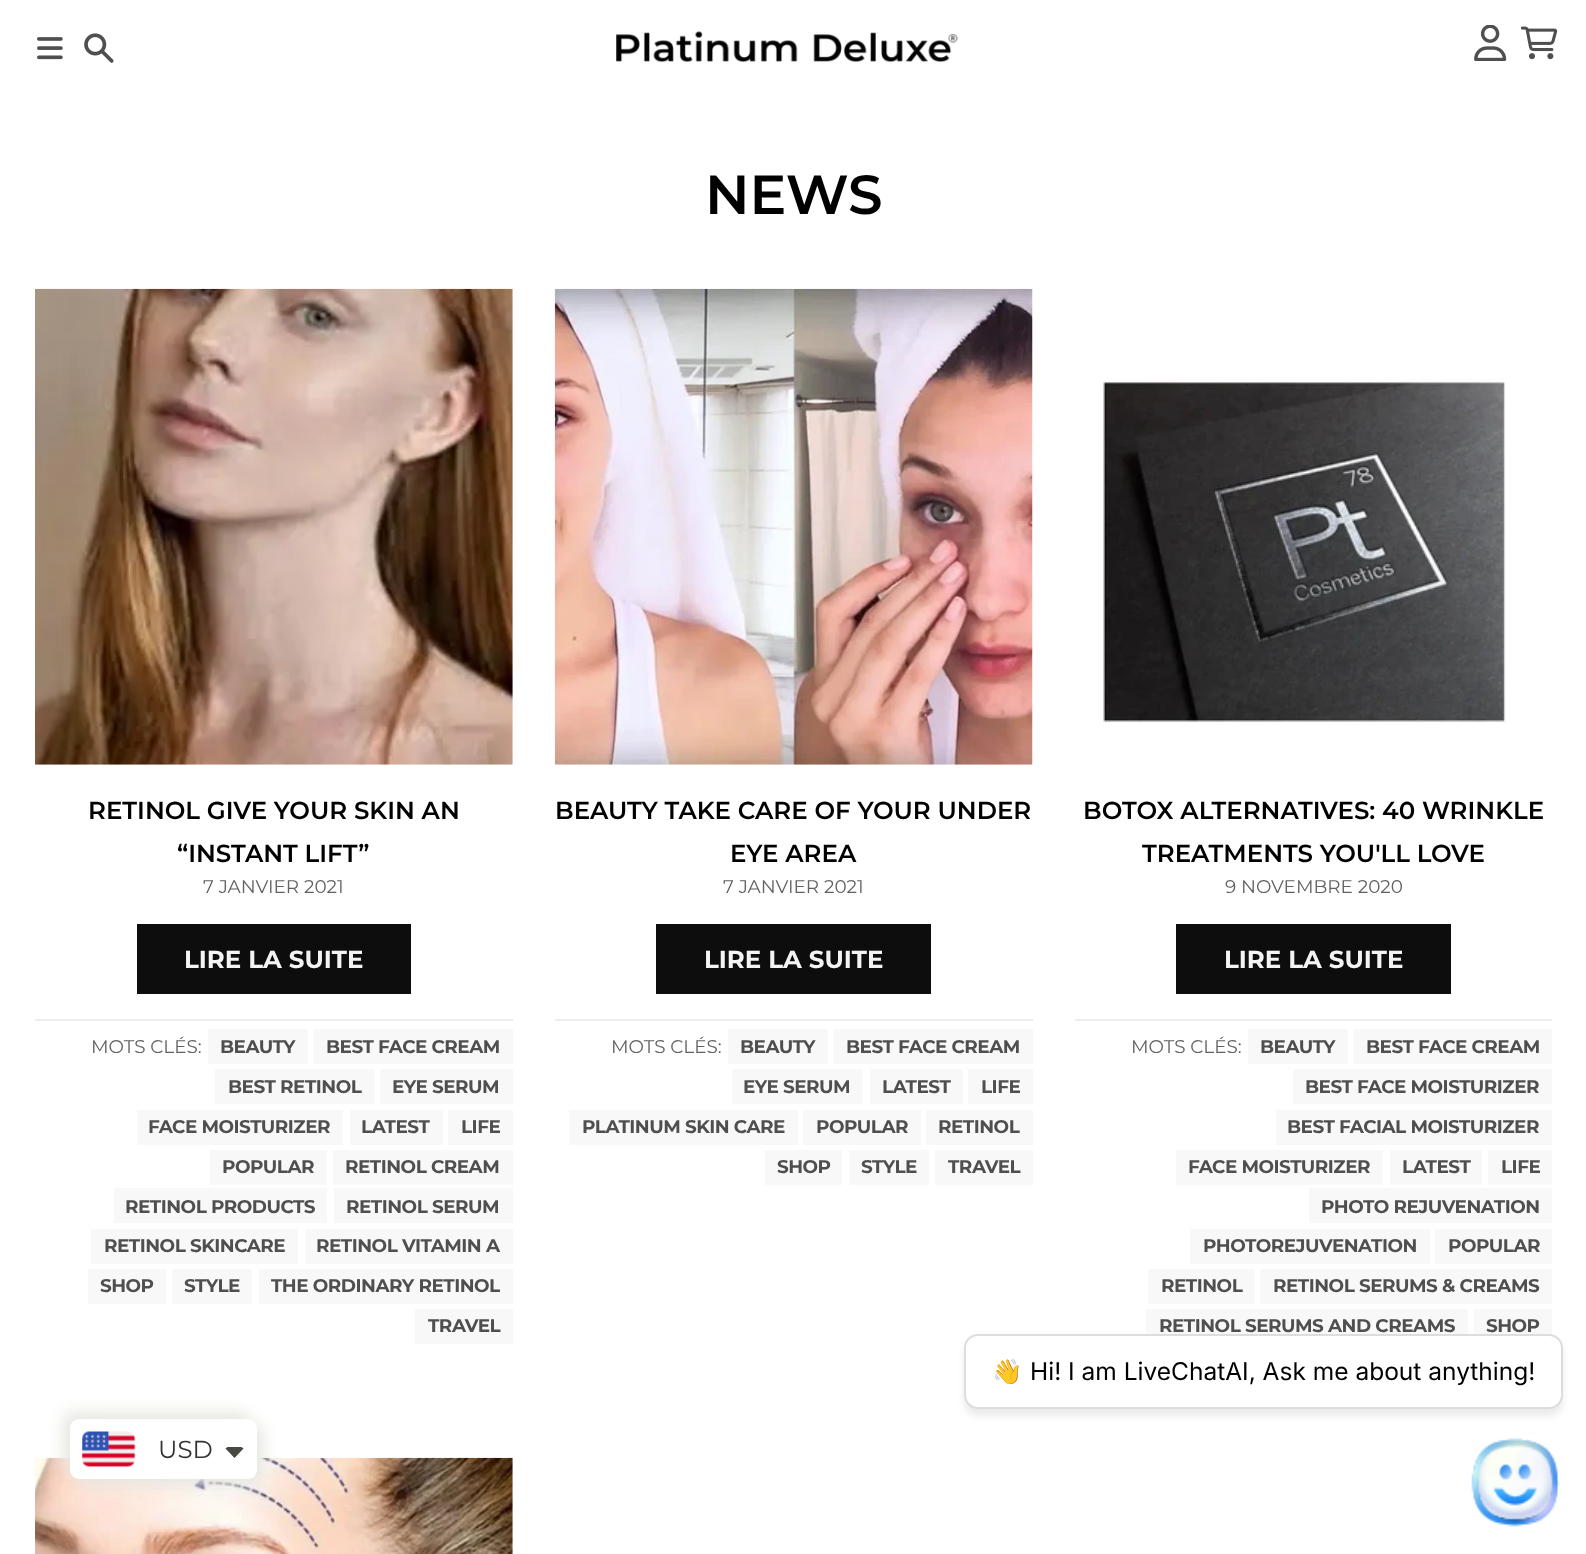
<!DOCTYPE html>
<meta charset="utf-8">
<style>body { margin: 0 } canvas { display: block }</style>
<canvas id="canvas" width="1586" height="1554"></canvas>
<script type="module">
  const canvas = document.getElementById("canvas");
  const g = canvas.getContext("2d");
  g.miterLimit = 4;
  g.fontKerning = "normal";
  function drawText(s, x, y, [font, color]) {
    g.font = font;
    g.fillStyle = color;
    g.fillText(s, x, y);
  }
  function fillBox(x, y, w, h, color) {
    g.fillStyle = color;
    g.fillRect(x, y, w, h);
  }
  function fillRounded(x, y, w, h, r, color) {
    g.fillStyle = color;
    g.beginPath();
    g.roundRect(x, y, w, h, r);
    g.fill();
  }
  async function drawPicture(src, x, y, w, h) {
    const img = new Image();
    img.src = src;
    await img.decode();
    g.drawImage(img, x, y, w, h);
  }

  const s1 = ["600 55px Montserrat", "#000000"];
  const s2 = ["600 24.5px Montserrat", "#000000"];
  const s3 = ["18.4px Montserrat", "#616161"];
  const s4 = ["bold 24.5px Montserrat", "#F3F3F3"];
  const s5 = ["bold 18.4px Montserrat", "#4F4F4F"];
  const s6 = ["24.5px Noto Color Emoji", "#000000"];
  const s7 = ["24.5px Inter", "#000000"];
  const s8 = ["24.5px Montserrat", "#333333"];

  fillBox(0, 0, 1586, 1554, "#FFFFFF");
  await drawPicture("pic1.png", 37, 37, 26, 23);
  await drawPicture("pic2.png", 84, 33, 30, 30);
  await drawPicture("pic3.png", 616, 31, 342, 32);
  await drawPicture("pic4.png", 1474, 25, 33, 36);
  await drawPicture("pic5.png", 1521, 26, 37, 34);
  drawText("NEWS", 705, 214, s1);
  await drawPicture("pic6.png", 35, 288, 478, 477);
  drawText("RETINOL GIVE YOUR SKIN AN", 88, 819, s2);
  drawText("“INSTANT LIFT”", 177, 862, s2);
  drawText("7 JANVIER 2021", 203, 893, s3);
  fillBox(137, 924, 274, 70, "#0D0D0D");
  drawText("LIRE LA SUITE", 184, 968, s4);
  fillBox(35, 1019, 478, 2, "#EDEDED");
  drawText("MOTS CLÉS:", 91, 1053, s3);
  fillBox(208, 1029, 100, 35, "#F8F8F8");
  g.letterSpacing = "-0.5px";
  drawText("BEAUTY", 220, 1053, s5);
  fillBox(313, 1029, 200, 35, "#F8F8F8");
  drawText("BEST FACE CREAM", 326, 1053, s5);
  fillBox(215, 1069, 160, 35, "#F8F8F8");
  drawText("BEST RETINOL", 228, 1093, s5);
  fillBox(380, 1069, 133, 35, "#F8F8F8");
  drawText("EYE SERUM", 392, 1093, s5);
  fillBox(137, 1110, 206, 35, "#F8F8F8");
  drawText("FACE MOISTURIZER", 148, 1133, s5);
  fillBox(350, 1110, 93, 35, "#F8F8F8");
  drawText("LATEST", 361, 1133, s5);
  fillBox(448, 1110, 65, 35, "#F8F8F8");
  drawText("LIFE", 461, 1133, s5);
  fillBox(210, 1150, 117, 35, "#F8F8F8");
  drawText("POPULAR", 222, 1173, s5);
  fillBox(333, 1150, 180, 35, "#F8F8F8");
  drawText("RETINOL CREAM", 345, 1173, s5);
  fillBox(114, 1188, 213, 35, "#F8F8F8");
  drawText("RETINOL PRODUCTS", 125, 1213, s5);
  fillBox(334, 1188, 179, 35, "#F8F8F8");
  drawText("RETINOL SERUM", 346, 1213, s5);
  fillBox(91, 1229, 207, 35, "#F8F8F8");
  drawText("RETINOL SKINCARE", 104, 1252, s5);
  fillBox(305, 1229, 208, 35, "#F8F8F8");
  drawText("RETINOL VITAMIN A", 316, 1252, s5);
  fillBox(88, 1269, 78, 35, "#F8F8F8");
  drawText("SHOP", 100, 1292, s5);
  fillBox(172, 1269, 80, 35, "#F8F8F8");
  drawText("STYLE", 184, 1292, s5);
  fillBox(259, 1269, 254, 35, "#F8F8F8");
  drawText("THE ORDINARY RETINOL", 271, 1292, s5);
  fillBox(415, 1309, 98, 35, "#F8F8F8");
  drawText("TRAVEL", 428, 1332, s5);
  await drawPicture("pic7.png", 554, 288, 479, 477);
  g.letterSpacing = "0px";
  drawText("BEAUTY TAKE CARE OF YOUR UNDER", 555, 819, s2);
  drawText("EYE AREA", 730, 862, s2);
  drawText("7 JANVIER 2021", 723, 893, s3);
  fillBox(656, 924, 275, 70, "#0D0D0D");
  drawText("LIRE LA SUITE", 704, 968, s4);
  fillBox(555, 1019, 478, 2, "#EDEDED");
  drawText("MOTS CLÉS:", 611, 1053, s3);
  fillBox(728, 1029, 100, 35, "#F8F8F8");
  g.letterSpacing = "-0.5px";
  drawText("BEAUTY", 740, 1053, s5);
  fillBox(833, 1029, 200, 35, "#F8F8F8");
  drawText("BEST FACE CREAM", 846, 1053, s5);
  fillBox(732, 1069, 131, 35, "#F8F8F8");
  drawText("EYE SERUM", 743, 1093, s5);
  fillBox(870, 1069, 93, 35, "#F8F8F8");
  drawText("LATEST", 882, 1093, s5);
  fillBox(968, 1069, 65, 35, "#F8F8F8");
  drawText("LIFE", 981, 1093, s5);
  fillBox(569, 1110, 229, 35, "#F8F8F8");
  drawText("PLATINUM SKIN CARE", 582, 1133, s5);
  fillBox(803, 1110, 118, 35, "#F8F8F8");
  drawText("POPULAR", 816, 1133, s5);
  fillBox(926, 1110, 107, 35, "#F8F8F8");
  drawText("RETINOL", 938, 1133, s5);
  fillBox(765, 1150, 77, 35, "#F8F8F8");
  drawText("SHOP", 777, 1173, s5);
  fillBox(849, 1150, 80, 35, "#F8F8F8");
  drawText("STYLE", 861, 1173, s5);
  fillBox(935, 1150, 98, 35, "#F8F8F8");
  drawText("TRAVEL", 948, 1173, s5);
  await drawPicture("pic8.png", 1103, 378, 403, 345);
  g.letterSpacing = "0px";
  drawText("BOTOX ALTERNATIVES: 40 WRINKLE", 1083, 819, s2);
  drawText("TREATMENTS YOU'LL LOVE", 1142, 862, s2);
  drawText("9 NOVEMBRE 2020", 1225, 893, s3);
  fillBox(1176, 924, 275, 70, "#0D0D0D");
  drawText("LIRE LA SUITE", 1224, 968, s4);
  fillBox(1075, 1019, 477, 2, "#EDEDED");
  drawText("MOTS CLÉS:", 1131, 1053, s3);
  fillBox(1248, 1029, 100, 35, "#F8F8F8");
  g.letterSpacing = "-0.5px";
  drawText("BEAUTY", 1260, 1053, s5);
  fillBox(1353, 1029, 199, 35, "#F8F8F8");
  drawText("BEST FACE CREAM", 1366, 1053, s5);
  fillBox(1293, 1069, 259, 35, "#F8F8F8");
  drawText("BEST FACE MOISTURIZER", 1305, 1093, s5);
  fillBox(1276, 1110, 276, 35, "#F8F8F8");
  drawText("BEST FACIAL MOISTURIZER", 1287, 1133, s5);
  fillBox(1176, 1150, 207, 35, "#F8F8F8");
  drawText("FACE MOISTURIZER", 1188, 1173, s5);
  fillBox(1390, 1150, 92, 35, "#F8F8F8");
  drawText("LATEST", 1402, 1173, s5);
  fillBox(1488, 1150, 64, 35, "#F8F8F8");
  drawText("LIFE", 1501, 1173, s5);
  fillBox(1309, 1188, 243, 35, "#F8F8F8");
  drawText("PHOTO REJUVENATION", 1321, 1213, s5);
  fillBox(1190, 1229, 240, 35, "#F8F8F8");
  drawText("PHOTOREJUVENATION", 1203, 1252, s5);
  fillBox(1435, 1229, 117, 35, "#F8F8F8");
  drawText("POPULAR", 1448, 1252, s5);
  fillBox(1148, 1269, 107, 35, "#F8F8F8");
  drawText("RETINOL", 1161, 1292, s5);
  fillBox(1260, 1269, 292, 35, "#F8F8F8");
  drawText("RETINOL SERUMS & CREAMS", 1273, 1292, s5);
  fillBox(1146, 1309, 322, 25, "#F8F8F8");
  drawText("RETINOL SERUMS AND CREAMS", 1159, 1332, s5);
  fillBox(1474, 1309, 78, 26, "#F8F8F8");
  drawText("SHOP", 1486, 1332, s5);
  await drawPicture("pic9.png", 35, 1457, 478, 97);
  g.fillStyle = "rgba(0, 0, 0, 0.08)";
  g.filter = "blur(3.5px)";
  g.beginPath();
  g.roundRect(964, 1341, 599, 75, 14);
  g.fill();
  g.filter = "none";
  g.fillStyle = "#FFFFFF";
  g.beginPath();
  g.roundRect(965, 1335, 597, 73, 13);
  g.fill();
  g.strokeStyle = "#DDDDDD";
  g.lineWidth = 2;
  g.stroke();
  g.letterSpacing = "0px";
  drawText("👋", 992, 1380, s6);
  drawText("Hi! I am LiveChatAI, Ask me about anything!", 1030, 1380, s7);
  await drawPicture("pic10.png", 1471, 1438, 89, 89);
  g.fillStyle = "#E8E8E2";
  g.filter = "blur(8px)";
  g.beginPath();
  g.roundRect(63, 1412, 187, 60, 9);
  g.fill();
  g.filter = "none";
  g.filter = "blur(8px)";
  g.beginPath();
  g.roundRect(77, 1426, 187, 60, 9);
  g.fill();
  g.filter = "none";
  fillRounded(70, 1419, 187, 60, 9, "#FFFFFF");
  await drawPicture("pic11.png", 82, 1431, 54, 36);
  drawText("USD", 158, 1458, s8);
  g.fillStyle = "#474942";
  g.beginPath();
  g.moveTo(225.5, 1448.5);
  g.bezierCurveTo(226, 1448, 227, 1447.5, 227.5, 1447);
  g.lineTo(241.5, 1447);
  g.bezierCurveTo(242, 1447.5, 243, 1448, 243.5, 1448.5);
  g.lineTo(234.5, 1458);
  g.closePath();
  g.fill();
</script>
